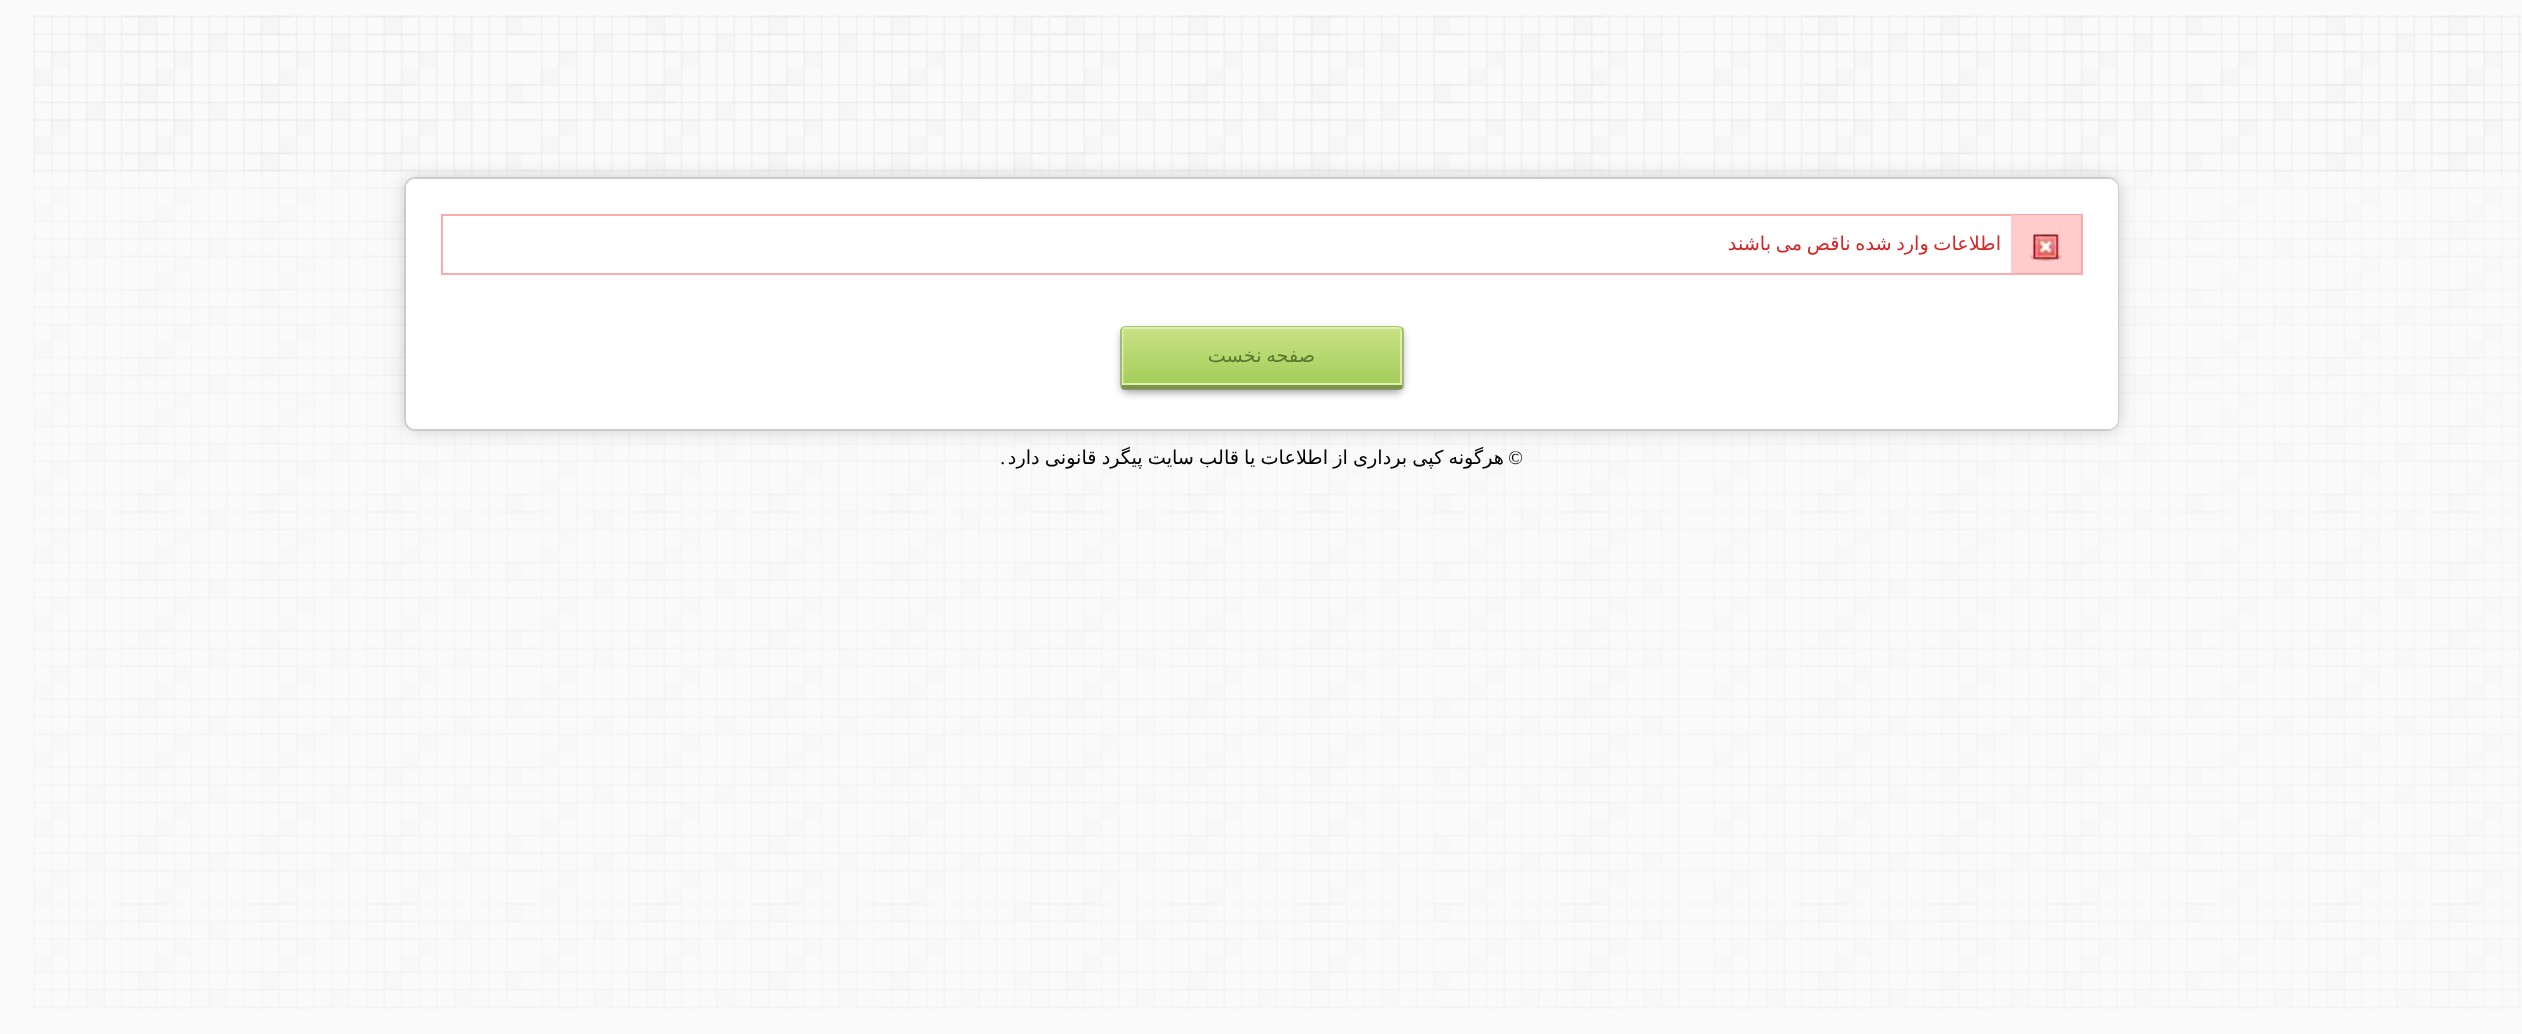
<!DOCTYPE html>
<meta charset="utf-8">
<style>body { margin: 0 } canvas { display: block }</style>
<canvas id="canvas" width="2522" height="1034"></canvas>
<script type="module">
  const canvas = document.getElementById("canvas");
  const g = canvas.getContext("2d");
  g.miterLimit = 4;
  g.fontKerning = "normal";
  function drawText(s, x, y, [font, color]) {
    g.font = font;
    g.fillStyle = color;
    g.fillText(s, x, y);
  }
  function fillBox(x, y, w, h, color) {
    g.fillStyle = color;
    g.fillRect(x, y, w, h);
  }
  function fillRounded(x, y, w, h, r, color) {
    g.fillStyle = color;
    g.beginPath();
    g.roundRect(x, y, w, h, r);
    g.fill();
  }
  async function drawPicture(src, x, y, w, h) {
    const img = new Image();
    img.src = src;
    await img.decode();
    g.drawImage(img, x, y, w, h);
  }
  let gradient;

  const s1 = ["19.25px DejaVu Sans", "#D62626"];
  const s2 = ["19.25px DejaVu Sans", "#5D7731"];
  const s3 = ["19.25px Liberation Serif", "#000000"];
  const s4 = ["19.25px DejaVu Sans", "#000000"];

  fillBox(0, 0, 2522, 1034, "#FAFAFA");
  await drawPicture("pic1.png", 33, 15, 2488, 157);
  await drawPicture("pic2.png", 33, 15, 2488, 994);
  g.beginPath();
  g.roundRect(405, 178, 1713, 252, 10);
  g.strokeStyle = "rgba(0, 0, 0, 0.1)";
  g.lineWidth = 2;
  g.stroke();
  g.fillStyle = "rgba(0, 0, 0, 0.2)";
  g.filter = "blur(9px)";
  g.beginPath();
  g.roundRect(406, 179, 1712, 250, 9);
  g.fill();
  g.filter = "none";
  fillRounded(406, 179, 1712, 250, 9, "#FFFFFF");
  g.strokeStyle = "#FFAAAA";
  g.strokeRect(442, 215, 1640, 59);
  fillBox(2011, 215, 70, 58, "#FFCBCB");
  await drawPicture("pic3.png", 2029, 234, 33, 28);
  g.wordSpacing = "-1.5px";
  g.direction = "rtl";
  drawText("اطلاعات وارد شده ناقص می باشند", 2001, 250, s1);
  gradient = g.createLinearGradient(1262, 327, 1262, 385);
  gradient.addColorStop(0, "#CAE285");
  gradient.addColorStop(1, "#A3CD5A");
  g.fillStyle = gradient;
  g.beginPath();
  g.moveTo(1125, 327);
  g.lineTo(1398, 327);
  g.bezierCurveTo(1400, 327, 1402, 329, 1402, 331);
  g.lineTo(1402, 385);
  g.lineTo(1122, 385);
  g.lineTo(1122, 331);
  g.bezierCurveTo(1122, 329, 1123, 327, 1125, 327);
  g.closePath();
  g.fill();
  g.beginPath();
  g.moveTo(1125, 328);
  g.lineTo(1398, 328);
  g.bezierCurveTo(1399.5, 328, 1401, 329.5, 1401, 331);
  g.lineTo(1401, 384);
  g.lineTo(1122.5, 384);
  g.lineTo(1122.5, 331);
  g.bezierCurveTo(1122.5, 329.5, 1124, 328, 1125, 328);
  g.closePath();
  g.strokeStyle = "#E0EEB6";
  g.lineWidth = 1.8;
  g.stroke();
  g.fillStyle = "#AAD063";
  g.beginPath();
  g.moveTo(1125, 326);
  g.lineTo(1122, 327);
  g.lineTo(1123, 328);
  g.bezierCurveTo(1123, 328, 1124, 327, 1125, 327);
  g.lineTo(1398, 327);
  g.bezierCurveTo(1399, 327, 1400, 328, 1401, 328);
  g.lineTo(1402, 327);
  g.lineTo(1398, 326);
  g.closePath();
  g.fill();
  g.beginPath();
  g.moveTo(1402, 327);
  g.lineTo(1404, 329);
  g.lineTo(1404, 387);
  g.lineTo(1403, 388);
  g.lineTo(1402, 385);
  g.lineTo(1402, 331);
  g.lineTo(1401, 328);
  g.closePath();
  g.fill();
  g.fillStyle = "#799545";
  g.beginPath();
  g.moveTo(1403, 388);
  g.bezierCurveTo(1402, 389, 1400, 390, 1398, 390);
  g.lineTo(1125, 390);
  g.bezierCurveTo(1123, 390, 1122, 389, 1121, 388);
  g.lineTo(1122, 384);
  g.lineTo(1122, 385);
  g.lineTo(1402, 385);
  g.closePath();
  g.fill();
  g.fillStyle = "#AAD063";
  g.beginPath();
  g.moveTo(1120, 331);
  g.lineTo(1120, 385);
  g.lineTo(1121, 388);
  g.lineTo(1122, 384);
  g.lineTo(1122, 331);
  g.lineTo(1123, 328);
  g.lineTo(1122, 327);
  g.bezierCurveTo(1121, 328, 1120, 329, 1120, 331);
  g.closePath();
  g.fill();
  g.save();
  g.beginPath();
  g.moveTo(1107, 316);
  g.lineTo(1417, 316);
  g.lineTo(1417, 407);
  g.lineTo(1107, 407);
  g.closePath();
  g.moveTo(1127, 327);
  g.lineTo(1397, 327);
  g.bezierCurveTo(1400, 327, 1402, 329, 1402, 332);
  g.lineTo(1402, 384);
  g.bezierCurveTo(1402, 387, 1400, 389, 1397, 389);
  g.lineTo(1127, 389);
  g.bezierCurveTo(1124, 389, 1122, 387, 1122, 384);
  g.lineTo(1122, 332);
  g.bezierCurveTo(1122, 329, 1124, 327, 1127, 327);
  g.closePath();
  g.clip("evenodd");
  g.fillStyle = "#959595";
  g.filter = "blur(4.5px)";
  g.beginPath();
  g.roundRect(1122, 331, 280, 61, 5);
  g.fill();
  g.filter = "none";
  g.restore();
  drawText("صفحه نخست", 1315, 362, s2);
  g.wordSpacing = "0px";
  drawText("©", 1523, 464, s3);
  g.wordSpacing = "-1px";
  drawText("هرگونه کپی برداری از اطلاعات یا قالب سایت پیگرد قانونی دارد", 1504, 464, s4);
  g.wordSpacing = "0px";
  drawText(".", 1005, 464, s3);
</script>
